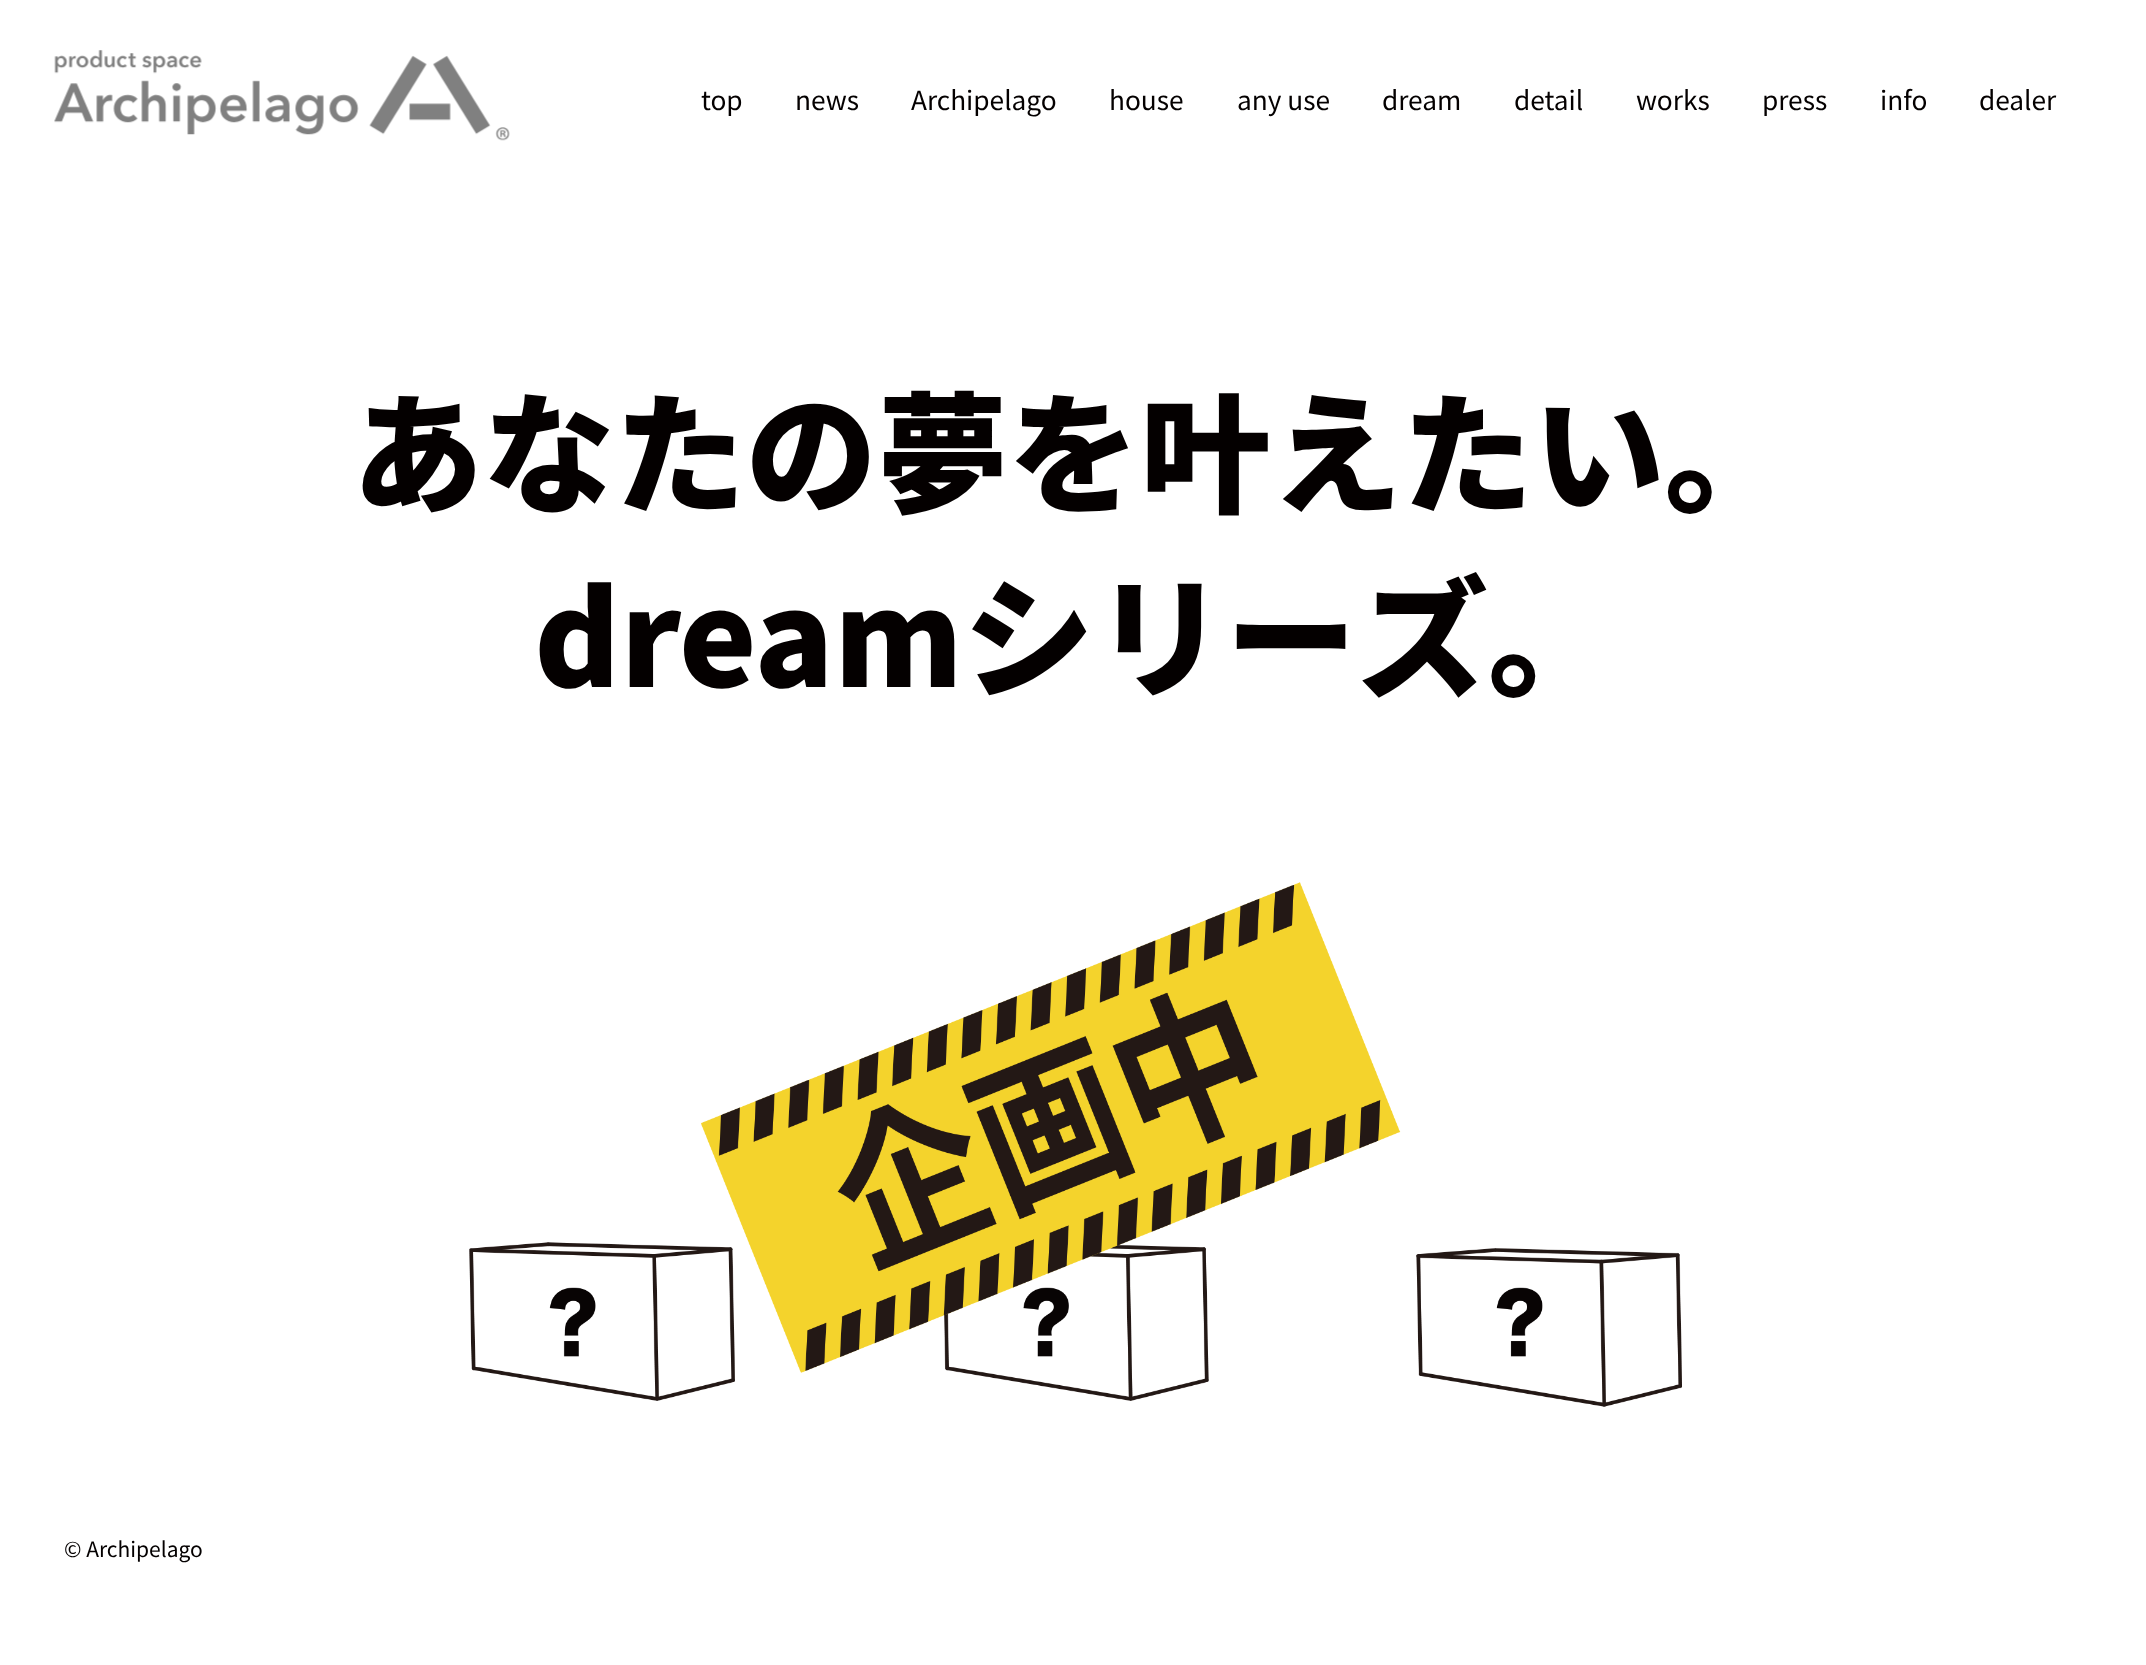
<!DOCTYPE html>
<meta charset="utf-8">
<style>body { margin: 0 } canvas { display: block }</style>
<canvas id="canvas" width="2146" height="1665"></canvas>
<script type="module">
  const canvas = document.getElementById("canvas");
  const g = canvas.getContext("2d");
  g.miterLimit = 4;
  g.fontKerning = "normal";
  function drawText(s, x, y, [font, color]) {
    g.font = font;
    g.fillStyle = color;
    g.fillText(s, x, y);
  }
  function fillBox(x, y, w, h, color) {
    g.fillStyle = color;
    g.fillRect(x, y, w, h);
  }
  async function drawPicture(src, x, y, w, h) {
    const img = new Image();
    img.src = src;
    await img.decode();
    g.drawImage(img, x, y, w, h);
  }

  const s1 = ["26.25px Noto Sans JP", "#040000"];
  const s2 = ["900 131.25px Noto Sans JP", "#040000"];
  const s3 = ["21px Noto Sans JP", "#040000"];

  fillBox(0, 0, 2146, 1665, "#FFFFFF");
  await drawPicture("pic1.png", 54, 50, 456, 91);
  drawText("top", 701, 110, s1);
  drawText("news", 795, 110, s1);
  drawText("Archipelago", 911, 110, s1);
  drawText("house", 1109, 110, s1);
  drawText("any use", 1237, 110, s1);
  drawText("dream", 1382, 110, s1);
  drawText("detail", 1514, 110, s1);
  drawText("works", 1636, 110, s1);
  drawText("press", 1762, 110, s1);
  drawText("info", 1880, 110, s1);
  drawText("dealer", 1979, 110, s1);
  drawText("あなたの夢を叶えたい。", 352, 503, s2);
  drawText("dreamシリーズ。", 534, 687, s2);
  await drawPicture("pic2.png", 469, 882, 1213, 525);
  drawText("© Archipelago", 64, 1557, s3);
</script>
